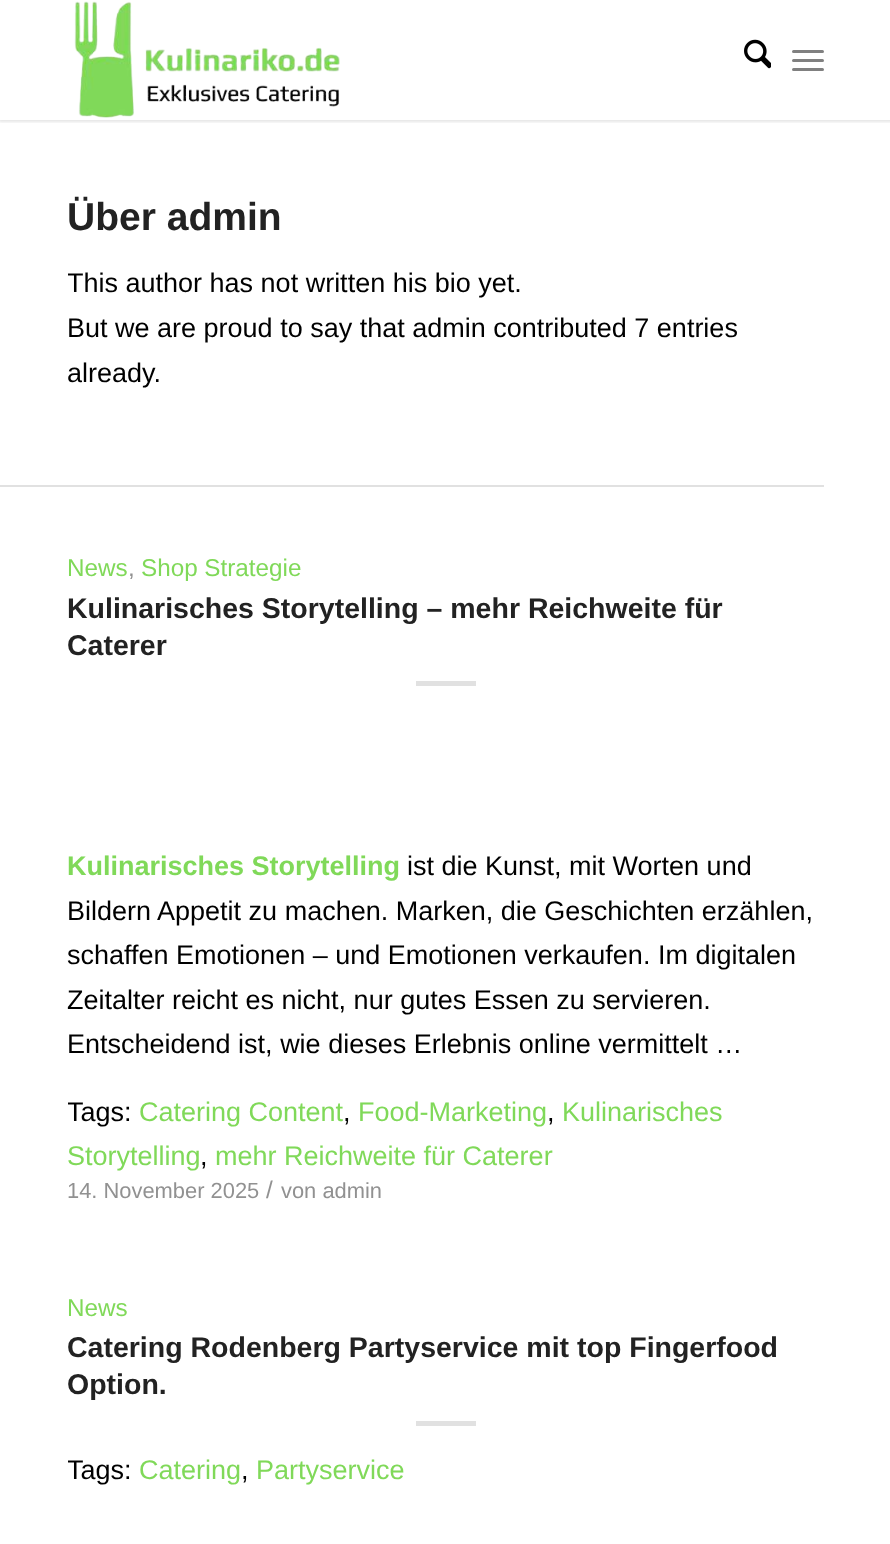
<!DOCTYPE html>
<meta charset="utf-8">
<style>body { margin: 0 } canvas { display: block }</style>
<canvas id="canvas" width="890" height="1544"></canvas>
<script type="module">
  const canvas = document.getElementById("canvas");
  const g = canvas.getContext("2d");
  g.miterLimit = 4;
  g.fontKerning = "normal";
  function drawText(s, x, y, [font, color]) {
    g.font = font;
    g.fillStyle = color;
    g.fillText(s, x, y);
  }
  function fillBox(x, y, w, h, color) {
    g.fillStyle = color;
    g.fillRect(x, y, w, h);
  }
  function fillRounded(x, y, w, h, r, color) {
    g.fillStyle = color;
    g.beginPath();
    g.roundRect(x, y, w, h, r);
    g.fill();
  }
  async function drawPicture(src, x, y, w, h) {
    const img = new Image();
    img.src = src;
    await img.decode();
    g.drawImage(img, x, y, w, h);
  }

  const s1 = ["bold 39px Liberation Sans", "#222222"];
  const s2 = ["27px Liberation Sans", "#000000"];
  const s3 = ["24.25px Liberation Sans", "#80D959"];
  const s4 = ["24.25px Liberation Sans", "#919191"];
  const s5 = ["bold 28.5px Liberation Sans", "#222222"];
  const s6 = ["bold 27px Liberation Sans", "#80D959"];
  const s7 = ["27px Liberation Sans", "#80D959"];
  const s8 = ["21.9px Liberation Sans", "#919191"];

  fillBox(0, 0, 890, 1544, "#FFFFFF");
  g.save();
  g.beginPath();
  g.rect(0, 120, 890, 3);
  g.clip();
  g.fillStyle = "rgba(0, 0, 0, 0.1)";
  g.filter = "blur(1.5px)";
  g.beginPath();
  g.rect(-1, -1, 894, 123);
  g.fill();
  g.filter = "none";
  g.restore();
  await drawPicture("pic1.png", 74, 1, 266, 117);
  await drawPicture("pic2.png", 744, 39, 27, 30);
  fillRounded(792, 59, 32, 3, 1.5, "#808080");
  fillRounded(792, 50, 32, 3, 1.5, "#808080");
  fillRounded(792, 68, 32, 3, 1.5, "#808080");
  drawText("Über admin", 67, 230, s1);
  g.save();
  g.beginPath();
  g.rect(68, 195, 681, 224);
  g.clip();
  drawText("This author has not written his bio yet.", 67, 292, s2);
  g.restore();
  drawText("But we are proud to say that admin contributed 7 entries", 67, 337, s2);
  drawText("already.", 67, 382, s2);
  fillBox(0, 485, 824, 2, "#E1E1E1");
  drawText("News", 67, 576, s3);
  drawText(",", 128, 576, s4);
  drawText("Shop Strategie", 141, 576, s3);
  drawText("Kulinarisches Storytelling – mehr Reichweite für", 67, 618, s5);
  drawText("Caterer", 67, 655, s5);
  fillBox(416, 681, 60, 5, "#E1E1E1");
  drawText("Kulinarisches Storytelling", 67, 875, s6);
  drawText("ist die Kunst, mit Worten und", 407, 875, s2);
  drawText("Bildern Appetit zu machen. Marken, die Geschichten erzählen,", 67, 920, s2);
  drawText("schaffen Emotionen – und Emotionen verkaufen. Im digitalen", 67, 964, s2);
  drawText("Zeitalter reicht es nicht, nur gutes Essen zu servieren.", 67, 1009, s2);
  drawText("Entscheidend ist, wie dieses Erlebnis online vermittelt …", 67, 1053, s2);
  g.save();
  g.beginPath();
  g.rect(68, 546, 756, 740);
  g.clip();
  drawText("Tags:", 67, 1121, s2);
  g.restore();
  drawText("Catering Content", 139, 1121, s7);
  drawText(",", 343, 1121, s2);
  drawText("Food-Marketing", 358, 1121, s7);
  drawText(",", 547, 1121, s2);
  drawText("Kulinarisches", 562, 1121, s7);
  drawText("Storytelling", 67, 1165, s7);
  drawText(",", 200, 1165, s2);
  drawText("mehr Reichweite für Caterer", 215, 1165, s7);
  drawText("14. November 2025", 67, 1198, s8);
  drawText("/", 266, 1198, s4);
  drawText("von admin", 281, 1198, s8);
  drawText("News", 67, 1316, s3);
  drawText("Catering Rodenberg Partyservice mit top Fingerfood", 67, 1357, s5);
  drawText("Option.", 67, 1394, s5);
  fillBox(416, 1421, 60, 5, "#E1E1E1");
  g.save();
  g.beginPath();
  g.rect(68, 1286, 756, 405);
  g.clip();
  drawText("Tags:", 67, 1479, s2);
  g.restore();
  drawText("Catering", 139, 1479, s7);
  drawText(",", 241, 1479, s2);
  drawText("Partyservice", 256, 1479, s7);
</script>
